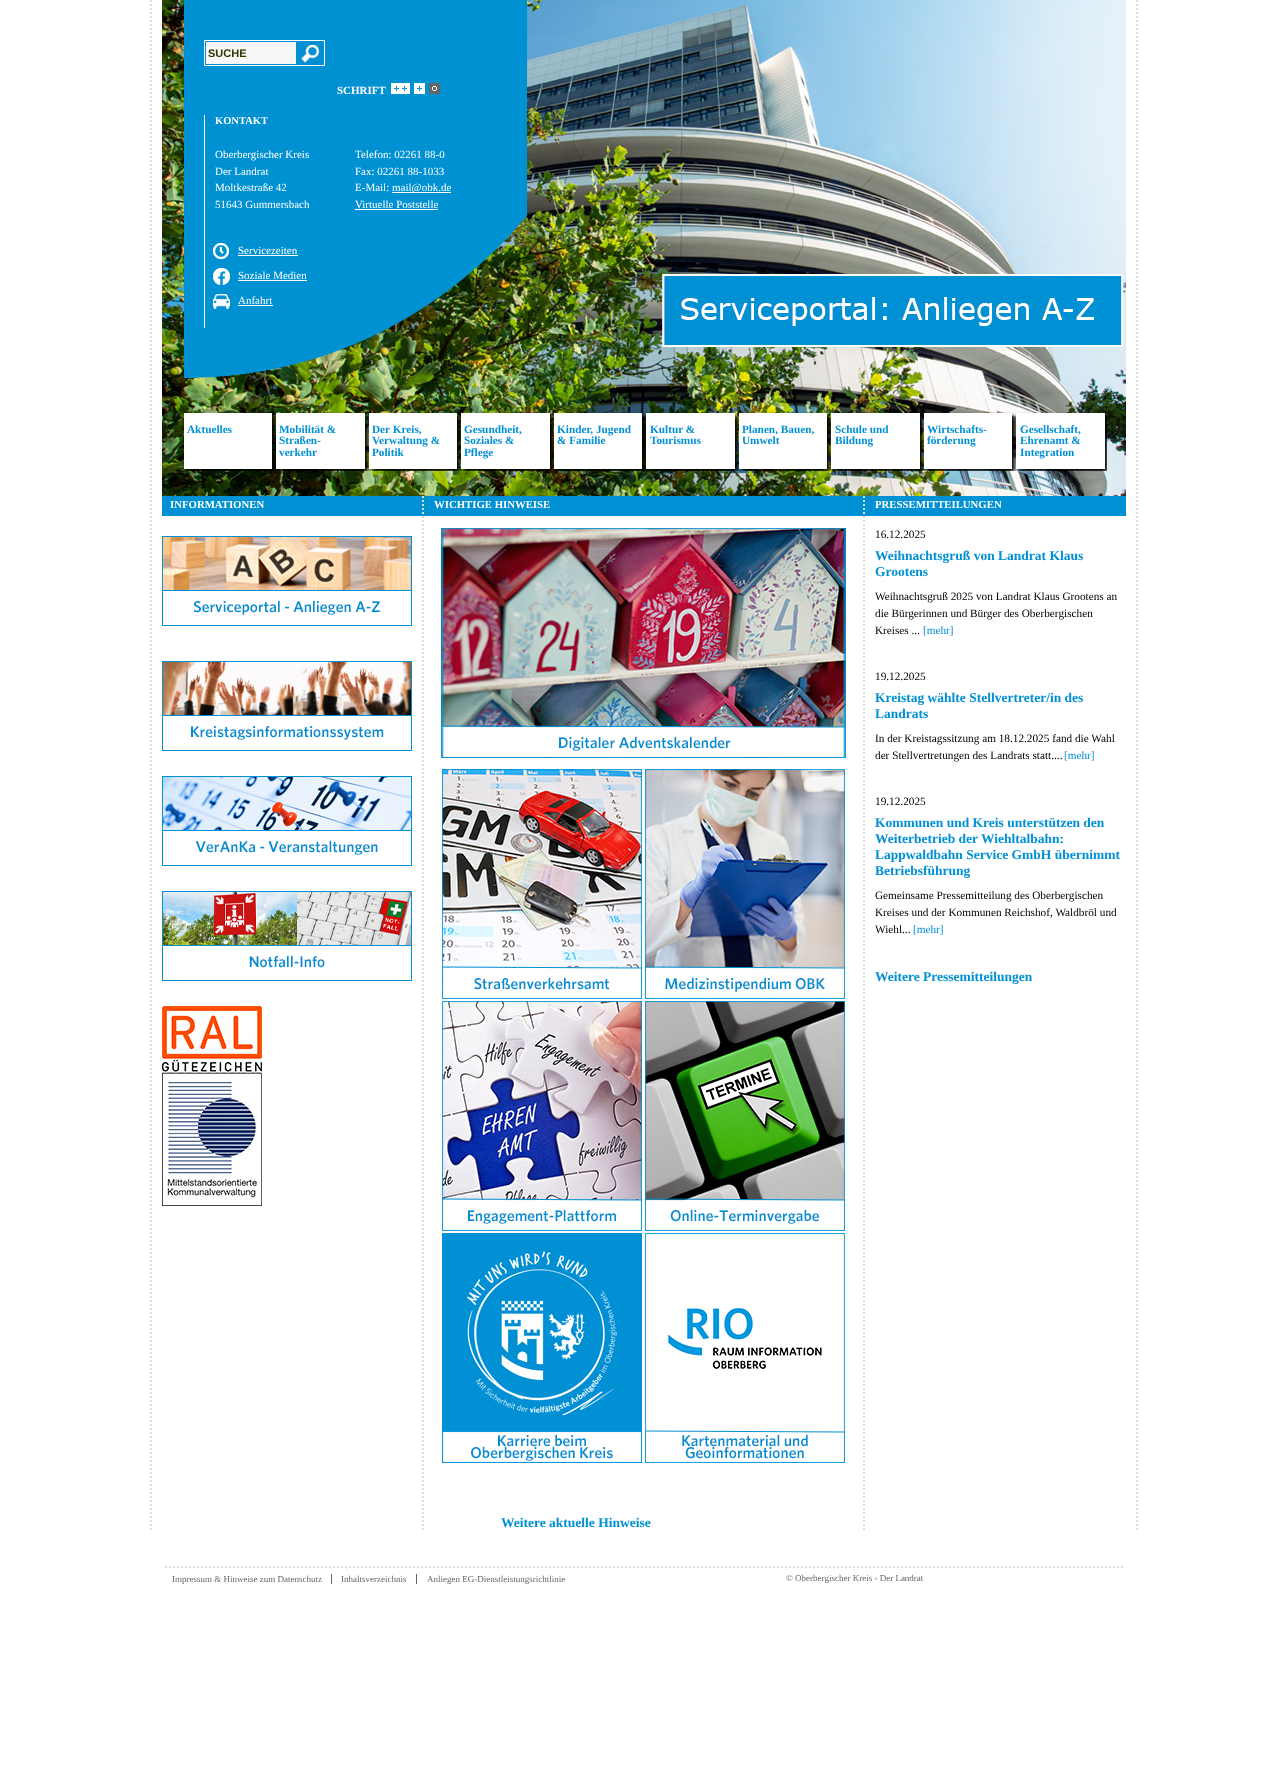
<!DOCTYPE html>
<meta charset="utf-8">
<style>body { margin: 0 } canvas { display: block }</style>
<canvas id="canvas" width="1287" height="1768"></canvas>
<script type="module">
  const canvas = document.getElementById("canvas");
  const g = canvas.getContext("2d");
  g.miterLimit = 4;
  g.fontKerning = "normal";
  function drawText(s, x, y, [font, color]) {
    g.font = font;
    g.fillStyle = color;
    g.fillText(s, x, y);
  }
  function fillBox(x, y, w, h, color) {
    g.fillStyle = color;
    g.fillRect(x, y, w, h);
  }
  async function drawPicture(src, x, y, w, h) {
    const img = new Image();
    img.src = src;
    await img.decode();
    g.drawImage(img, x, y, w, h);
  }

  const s1 = ["bold 11px Liberation Sans", "#333300"];
  const s2 = ["bold 11px Liberation Serif", "#FFFFFF"];
  const s3 = ["bold 10.5px Liberation Serif", "#FFFFFF"];
  const s4 = ["11px Liberation Serif", "#FFFFFF"];
  const s5 = ["bold 11.25px Liberation Serif", "#0090D4"];
  const s6 = ["bold 10.75px Liberation Serif", "#FFFFFF"];
  const s7 = ["bold 13.5px Liberation Serif", "#0090D4"];
  const s8 = ["11.25px Liberation Serif", "#000000"];
  const s9 = ["11.25px Liberation Serif", "#0090D4"];
  const s10 = ["9px Liberation Serif", "#666666"];

  fillBox(0, 0, 1287, 1768, "#FFFFFF");
  g.beginPath();
  g.moveTo(1137, 0);
  g.lineTo(1137, 1531);
  g.strokeStyle = "#DDDDDD";
  g.lineWidth = 2;
  g.setLineDash([2, 2]);
  g.stroke();
  g.beginPath();
  g.moveTo(151, 0);
  g.lineTo(151, 1531);
  g.stroke();
  await drawPicture("pic1.png", 162, 0, 964, 496);
  await drawPicture("pic2.png", 184, 0, 344, 378);
  g.strokeStyle = "#FFFFFF";
  g.lineWidth = 1;
  g.setLineDash([]);
  g.strokeRect(204.5, 40.5, 120, 25);
  fillBox(206, 42, 90, 22, "#F6F7F7");
  drawText("SUCHE", 208, 57, s1);
  await drawPicture("pic3.png", 299, 42, 23, 23);
  drawText("SCHRIFT", 337, 94, s2);
  await drawPicture("pic4.png", 391, 83, 19, 11);
  await drawPicture("pic5.png", 414, 83, 11, 11);
  await drawPicture("pic6.png", 429, 83, 11, 11);
  fillBox(204, 115, 1, 213, "#FFFFFF");
  drawText("KONTAKT", 215, 124, s3);
  drawText("Oberbergischer Kreis", 215, 158, s4);
  drawText("Der Landrat", 215, 175, s4);
  drawText("Moltkestraße 42", 215, 191, s4);
  drawText("51643 Gummersbach", 215, 208, s4);
  drawText("Telefon: 02261 88-0", 355, 158, s4);
  drawText("Fax: 02261 88-1033", 355, 175, s4);
  drawText("E-Mail:", 355, 191, s4);
  fillBox(392, 192, 59, 1, "#FFFFFF");
  drawText("mail@obk.de", 392, 191, s4);
  drawText("Virtuelle Poststelle", 355, 208, s4);
  fillBox(355, 209, 83, 1, "#FFFFFF");
  await drawPicture("pic7.png", 213, 243, 16, 16);
  drawText("Servicezeiten", 238, 254, s4);
  fillBox(238, 255, 60, 1, "#FFFFFF");
  await drawPicture("pic8.png", 213, 268, 17, 17);
  drawText("Soziale Medien", 238, 279, s4);
  fillBox(238, 280, 69, 1, "#FFFFFF");
  await drawPicture("pic9.png", 213, 294, 17, 15);
  drawText("Anfahrt", 238, 304, s4);
  fillBox(238, 305, 35, 1, "#FFFFFF");
  g.save();
  g.beginPath();
  g.rect(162, 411, 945, 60);
  g.clip();
  g.fillStyle = "#000000";
  g.filter = "blur(2px)";
  g.beginPath();
  g.rect(187, 416, 88, 56);
  g.fill();
  g.filter = "none";
  g.restore();
  fillBox(184, 413, 88, 56, "#FFFFFF");
  drawText("Aktuelles", 187, 433, s5);
  g.save();
  g.beginPath();
  g.rect(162, 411, 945, 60);
  g.clip();
  g.fillStyle = "#000000";
  g.filter = "blur(2px)";
  g.beginPath();
  g.rect(279, 416, 89, 56);
  g.fill();
  g.filter = "none";
  g.restore();
  fillBox(276, 413, 89, 56, "#FFFFFF");
  drawText("Mobilität &", 279, 433, s5);
  drawText("Straßen-", 279, 444, s5);
  drawText("verkehr", 279, 456, s5);
  g.save();
  g.beginPath();
  g.rect(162, 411, 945, 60);
  g.clip();
  g.fillStyle = "#000000";
  g.filter = "blur(2px)";
  g.beginPath();
  g.rect(372, 416, 88, 56);
  g.fill();
  g.filter = "none";
  g.restore();
  fillBox(369, 413, 88, 56, "#FFFFFF");
  drawText("Der Kreis,", 372, 433, s5);
  drawText("Verwaltung &", 372, 444, s5);
  drawText("Politik", 372, 456, s5);
  g.save();
  g.beginPath();
  g.rect(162, 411, 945, 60);
  g.clip();
  g.fillStyle = "#000000";
  g.filter = "blur(2px)";
  g.beginPath();
  g.rect(464, 416, 89, 56);
  g.fill();
  g.filter = "none";
  g.restore();
  fillBox(461, 413, 89, 56, "#FFFFFF");
  drawText("Gesundheit,", 464, 433, s5);
  drawText("Soziales &", 464, 444, s5);
  drawText("Pflege", 464, 456, s5);
  g.save();
  g.beginPath();
  g.rect(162, 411, 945, 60);
  g.clip();
  g.fillStyle = "#000000";
  g.filter = "blur(2px)";
  g.beginPath();
  g.rect(557, 416, 88, 56);
  g.fill();
  g.filter = "none";
  g.restore();
  fillBox(554, 413, 88, 56, "#FFFFFF");
  drawText("Kinder, Jugend", 557, 433, s5);
  drawText("& Familie", 557, 444, s5);
  g.save();
  g.beginPath();
  g.rect(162, 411, 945, 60);
  g.clip();
  g.fillStyle = "#000000";
  g.filter = "blur(2px)";
  g.beginPath();
  g.rect(649, 416, 89, 56);
  g.fill();
  g.filter = "none";
  g.restore();
  fillBox(646, 413, 89, 56, "#FFFFFF");
  drawText("Kultur &", 650, 433, s5);
  drawText("Tourismus", 650, 444, s5);
  g.save();
  g.beginPath();
  g.rect(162, 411, 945, 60);
  g.clip();
  g.fillStyle = "#000000";
  g.filter = "blur(2px)";
  g.beginPath();
  g.rect(742, 416, 88, 56);
  g.fill();
  g.filter = "none";
  g.restore();
  fillBox(739, 413, 88, 56, "#FFFFFF");
  drawText("Planen, Bauen,", 742, 433, s5);
  drawText("Umwelt", 742, 444, s5);
  g.save();
  g.beginPath();
  g.rect(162, 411, 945, 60);
  g.clip();
  g.fillStyle = "#000000";
  g.filter = "blur(2px)";
  g.beginPath();
  g.rect(834, 416, 89, 56);
  g.fill();
  g.filter = "none";
  g.restore();
  fillBox(831, 413, 89, 56, "#FFFFFF");
  drawText("Schule und", 835, 433, s5);
  drawText("Bildung", 835, 444, s5);
  g.save();
  g.beginPath();
  g.rect(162, 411, 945, 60);
  g.clip();
  g.fillStyle = "#000000";
  g.filter = "blur(2px)";
  g.beginPath();
  g.rect(927, 416, 88, 56);
  g.fill();
  g.filter = "none";
  g.restore();
  fillBox(924, 413, 88, 56, "#FFFFFF");
  drawText("Wirtschafts-", 927, 433, s5);
  drawText("förderung", 927, 444, s5);
  g.save();
  g.beginPath();
  g.rect(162, 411, 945, 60);
  g.clip();
  g.fillStyle = "#000000";
  g.filter = "blur(2px)";
  g.beginPath();
  g.rect(1019, 416, 89, 56);
  g.fill();
  g.filter = "none";
  g.restore();
  fillBox(1016, 413, 89, 56, "#FFFFFF");
  drawText("Gesellschaft,", 1020, 433, s5);
  drawText("Ehrenamt &", 1020, 444, s5);
  drawText("Integration", 1020, 456, s5);
  fillBox(162, 496, 964, 20, "#0090D4");
  drawText("INFORMATIONEN", 170, 508, s6);
  await drawPicture("pic10.png", 162, 536, 250, 90);
  await drawPicture("pic11.png", 162, 661, 250, 90);
  await drawPicture("pic12.png", 162, 776, 250, 90);
  await drawPicture("pic13.png", 162, 891, 250, 90);
  await drawPicture("pic14.png", 162, 1006, 100, 200);
  g.beginPath();
  g.moveTo(864, 496);
  g.lineTo(864, 1531);
  g.strokeStyle = "#DDDDDD";
  g.lineWidth = 2;
  g.setLineDash([2, 2]);
  g.stroke();
  g.beginPath();
  g.moveTo(423, 496);
  g.lineTo(423, 1531);
  g.stroke();
  drawText("WICHTIGE HINWEISE", 434, 508, s6);
  await drawPicture("pic15.png", 441, 528, 405, 230);
  await drawPicture("pic16.png", 442, 769, 200, 230);
  await drawPicture("pic17.png", 645, 769, 200, 230);
  await drawPicture("pic18.png", 442, 1001, 200, 230);
  await drawPicture("pic19.png", 645, 1001, 200, 230);
  await drawPicture("pic20.png", 442, 1233, 200, 230);
  await drawPicture("pic21.png", 645, 1233, 200, 230);
  drawText("Weitere aktuelle Hinweise", 501, 1527, s7);
  drawText("PRESSEMITTEILUNGEN", 875, 508, s6);
  drawText("16.12.2025", 875, 538, s8);
  drawText("Weihnachtsgruß von Landrat Klaus", 875, 560, s7);
  drawText("Grootens", 875, 576, s7);
  drawText("Weihnachtsgruß 2025 von Landrat Klaus Grootens an", 875, 600, s8);
  drawText("die Bürgerinnen und Bürger des Oberbergischen", 875, 617, s8);
  drawText("Kreises ...", 875, 634, s8);
  drawText("[mehr]", 923, 634, s9);
  drawText("19.12.2025", 875, 680, s8);
  drawText("Kreistag wählte Stellvertreter/in des", 875, 702, s7);
  drawText("Landrats", 875, 718, s7);
  drawText("In der Kreistagssitzung am 18.12.2025 fand die Wahl", 875, 742, s8);
  drawText("der Stellvertretungen des Landrats statt....", 875, 759, s8);
  drawText("[mehr]", 1064, 759, s9);
  drawText("19.12.2025", 875, 805, s8);
  drawText("Kommunen und Kreis unterstützen den", 875, 827, s7);
  drawText("Weiterbetrieb der Wiehltalbahn:", 875, 843, s7);
  drawText("Lappwaldbahn Service GmbH übernimmt", 875, 859, s7);
  drawText("Betriebsführung", 875, 875, s7);
  drawText("Gemeinsame Pressemitteilung des Oberbergischen", 875, 899, s8);
  drawText("Kreises und der Kommunen Reichshof, Waldbröl und", 875, 916, s8);
  drawText("Wiehl...", 875, 933, s8);
  drawText("[mehr]", 913, 933, s9);
  drawText("Weitere Pressemitteilungen", 875, 981, s7);
  fillBox(165, 1566, 958, 2, "#FCFCFD");
  g.beginPath();
  g.moveTo(165, 1567);
  g.lineTo(1123, 1567);
  g.stroke();
  drawText("Impressum & Hinweise zum Datenschutz", 172, 1582, s10);
  fillBox(331, 1574, 1, 10, "#666666");
  drawText("Inhaltsverzeichnis", 341, 1582, s10);
  fillBox(416, 1574, 1, 10, "#666666");
  drawText("Anliegen EG-Dienstleistungsrichtlinie", 427, 1582, s10);
  drawText("© Oberbergischer Kreis - Der Landrat", 786, 1581, s10);
</script>
